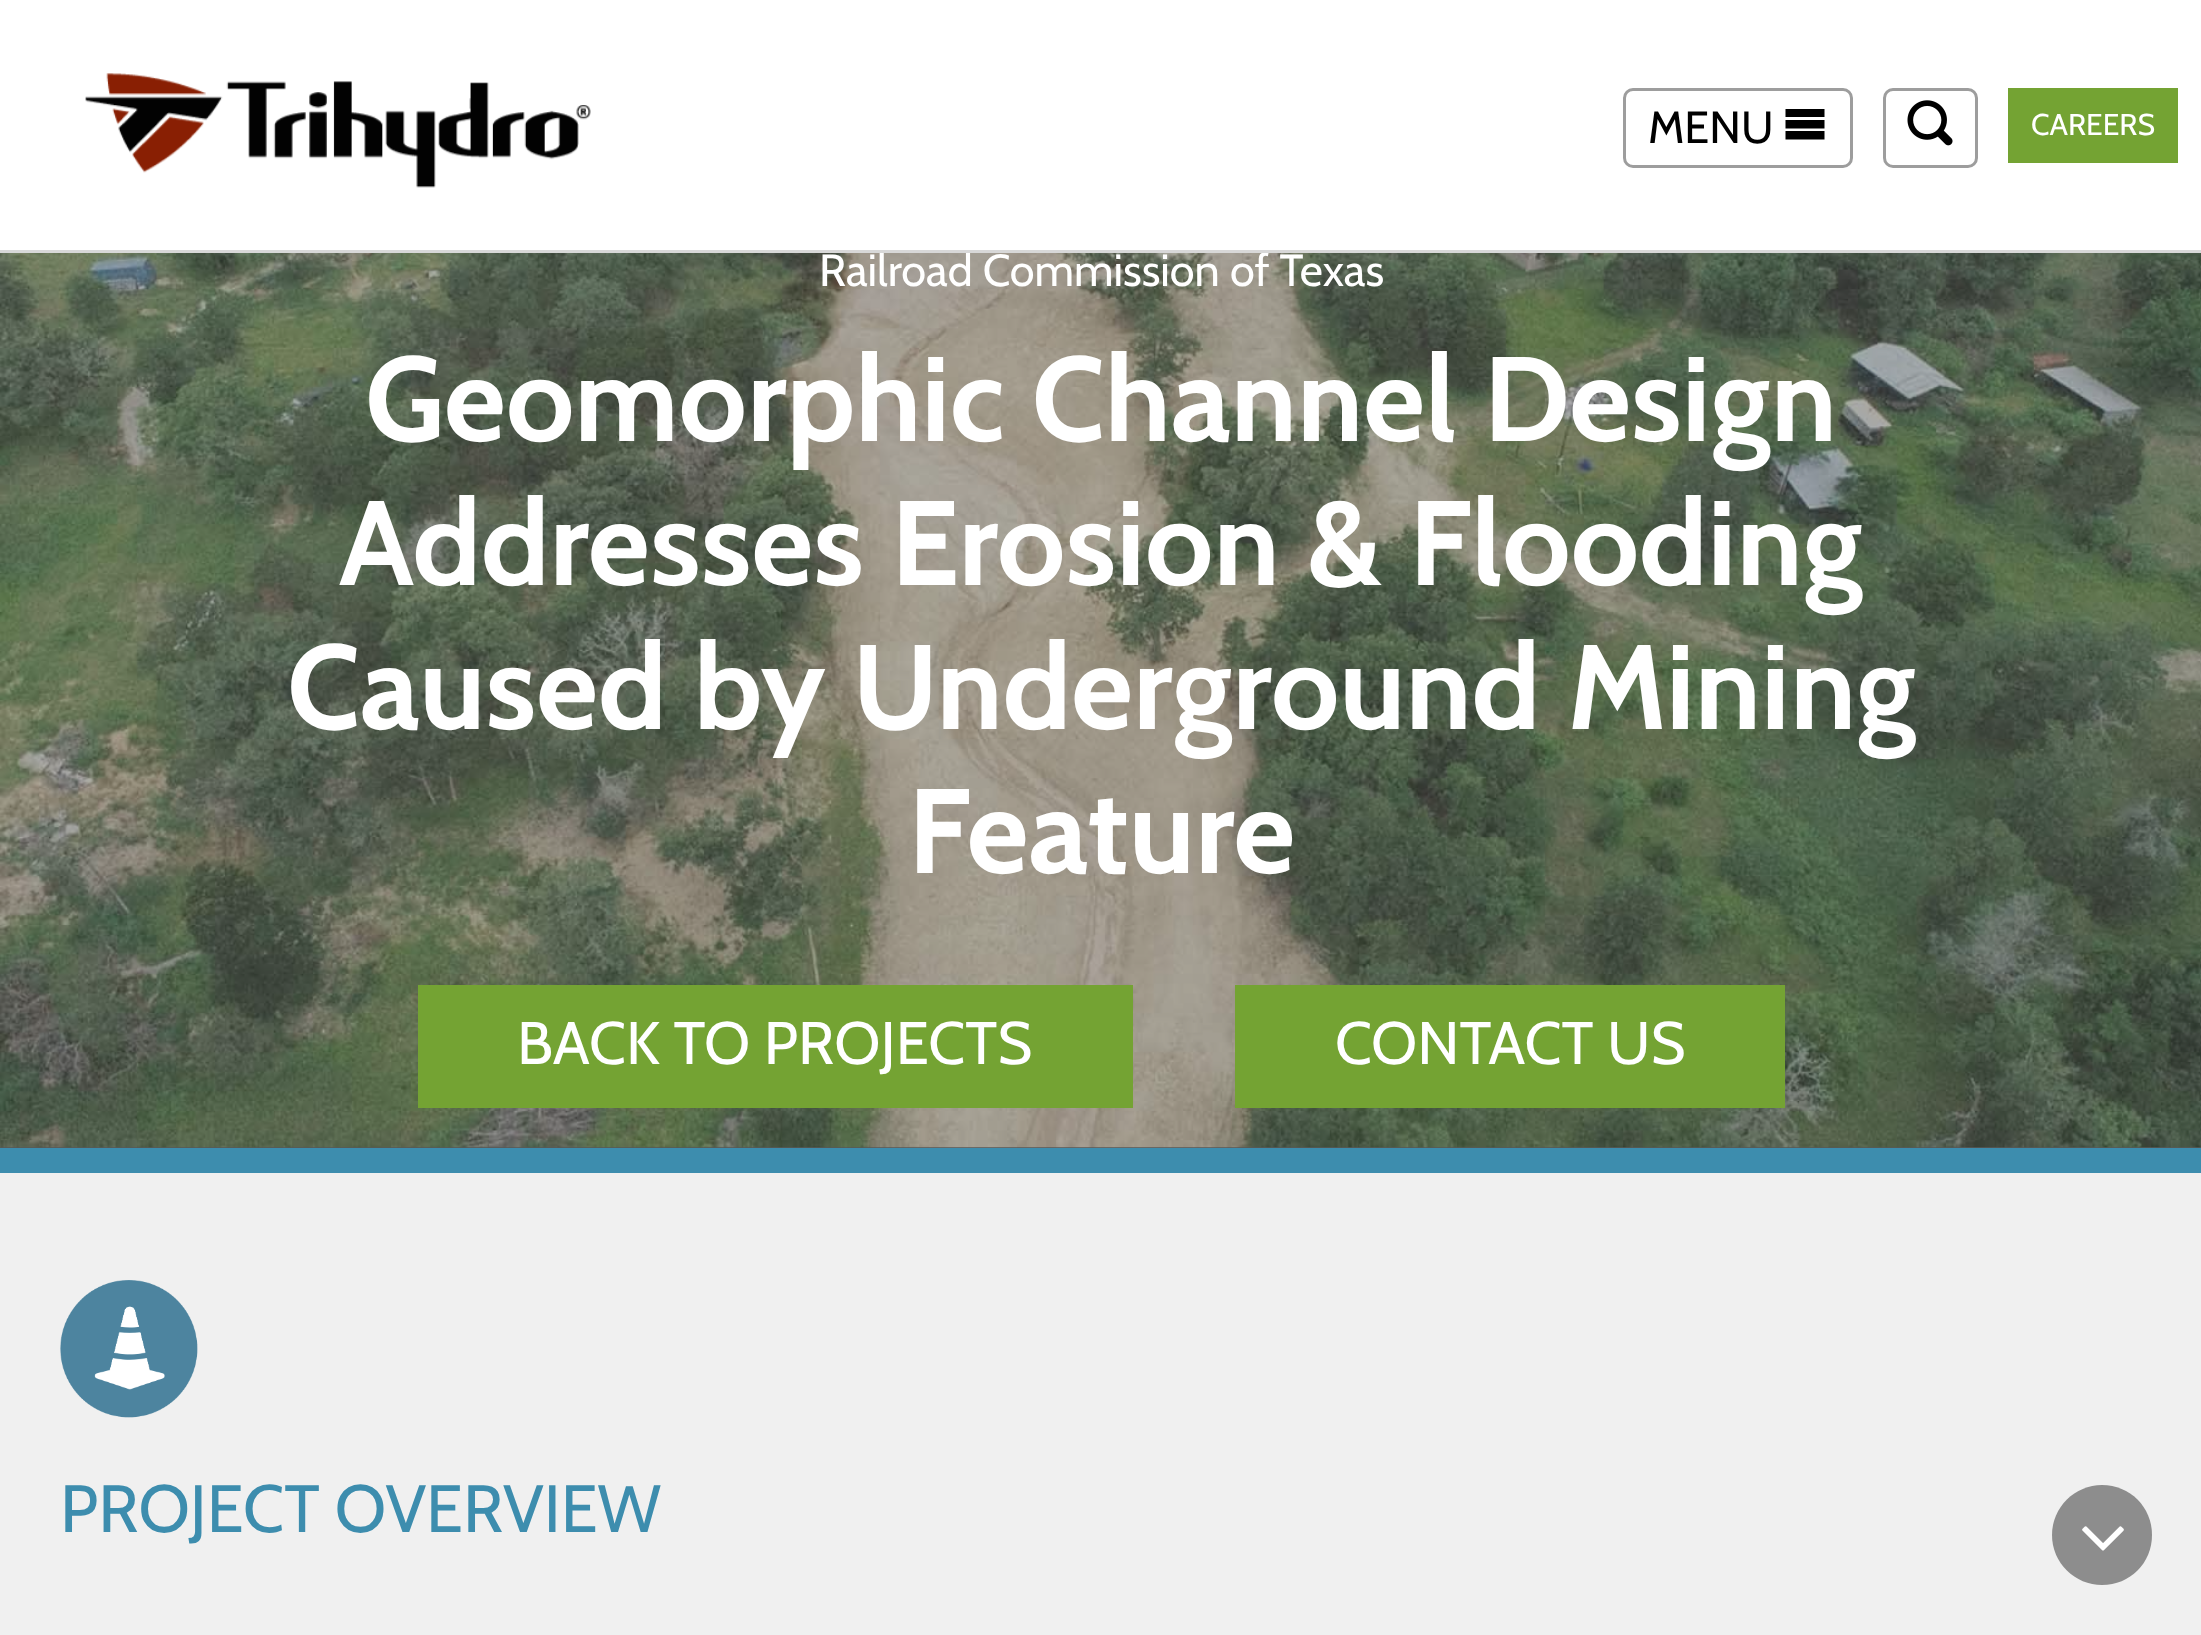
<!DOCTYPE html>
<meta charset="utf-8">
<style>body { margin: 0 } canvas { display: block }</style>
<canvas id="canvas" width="2201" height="1635"></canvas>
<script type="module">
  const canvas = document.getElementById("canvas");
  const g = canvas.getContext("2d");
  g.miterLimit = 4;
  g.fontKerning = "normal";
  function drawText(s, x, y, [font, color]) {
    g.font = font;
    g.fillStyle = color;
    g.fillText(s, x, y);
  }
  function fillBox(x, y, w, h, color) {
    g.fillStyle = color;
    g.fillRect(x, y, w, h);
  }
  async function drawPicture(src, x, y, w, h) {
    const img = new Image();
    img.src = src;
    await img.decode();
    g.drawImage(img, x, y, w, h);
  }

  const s1 = ["45px Cabin", "#FFFFFF"];
  const s2 = ["45px Cabin", "#000000"];
  const s3 = ["30px Cabin", "#FFFFFF"];
  const s4 = ["bold 120px Cabin", "#FFFFFF"];
  const s5 = ["60px Cabin", "#FFFFFF"];
  const s6 = ["66.75px Cabin", "#3D8DAE"];

  fillBox(0, 0, 2201, 1635, "#FFFFFF");
  fillBox(0, 253, 2201, 895, "#585858");
  await drawPicture("pic3.png", 0, 253, 2201, 895);
  drawText("Railroad Commission of Texas", 819, 286, s1);
  fillBox(0, 250, 2201, 3, "#D8D8D8");
  await drawPicture("pic1.png", 85, 73, 506, 115);
  g.beginPath();
  g.roundRect(1624.5, 89.5, 227, 77, 8.5);
  g.strokeStyle = "#9D9D9D";
  g.lineWidth = 3;
  g.stroke();
  drawText("MENU", 1648, 143, s2);
  g.beginPath();
  g.moveTo(1785.5, 109);
  g.lineTo(1824.5, 109);
  g.lineTo(1824.5, 117);
  g.lineTo(1785.5, 117);
  g.closePath();
  g.moveTo(1785.5, 120);
  g.lineTo(1824.5, 120);
  g.lineTo(1824.5, 128.5);
  g.lineTo(1785.5, 128.5);
  g.closePath();
  g.moveTo(1785.5, 131);
  g.lineTo(1824.5, 131);
  g.lineTo(1824.5, 139.5);
  g.lineTo(1785.5, 139.5);
  g.closePath();
  g.fill();
  g.beginPath();
  g.roundRect(1884.5, 89.5, 92, 77, 8.5);
  g.stroke();
  await drawPicture("pic2.png", 1907, 100, 46, 46);
  fillBox(2008, 88, 170, 75, "#74A333");
  drawText("CAREERS", 2031, 135, s3);
  drawText("Geomorphic Channel Design", 365, 441, s4);
  drawText("Addresses Erosion & Flooding", 339, 585, s4);
  drawText("Caused by Underground Mining", 287, 729, s4);
  drawText("Feature", 908, 873, s4);
  fillBox(418, 985, 715, 123, "#74A333");
  drawText("BACK TO PROJECTS", 517, 1064, s5);
  fillBox(1235, 985, 550, 123, "#74A333");
  drawText("CONTACT US", 1335, 1064, s5);
  fillBox(0, 1148, 2201, 25, "#3D8DAE");
  fillBox(0, 1173, 2201, 462, "#F0F0F0");
  await drawPicture("pic4.png", 60, 1280, 138, 138);
  drawText("PROJECT OVERVIEW", 60, 1532, s6);
  g.fillStyle = "#8D8D8D";
  g.beginPath();
  g.moveTo(2052, 1535);
  g.bezierCurveTo(2052, 1507, 2075, 1485, 2102, 1485);
  g.bezierCurveTo(2130, 1485, 2152, 1507, 2152, 1535);
  g.bezierCurveTo(2152, 1563, 2130, 1585, 2102, 1585);
  g.bezierCurveTo(2075, 1585, 2052, 1563, 2052, 1535);
  g.closePath();
  g.fill();
  await drawPicture("pic5.png", 2082, 1526, 42, 25);
</script>
